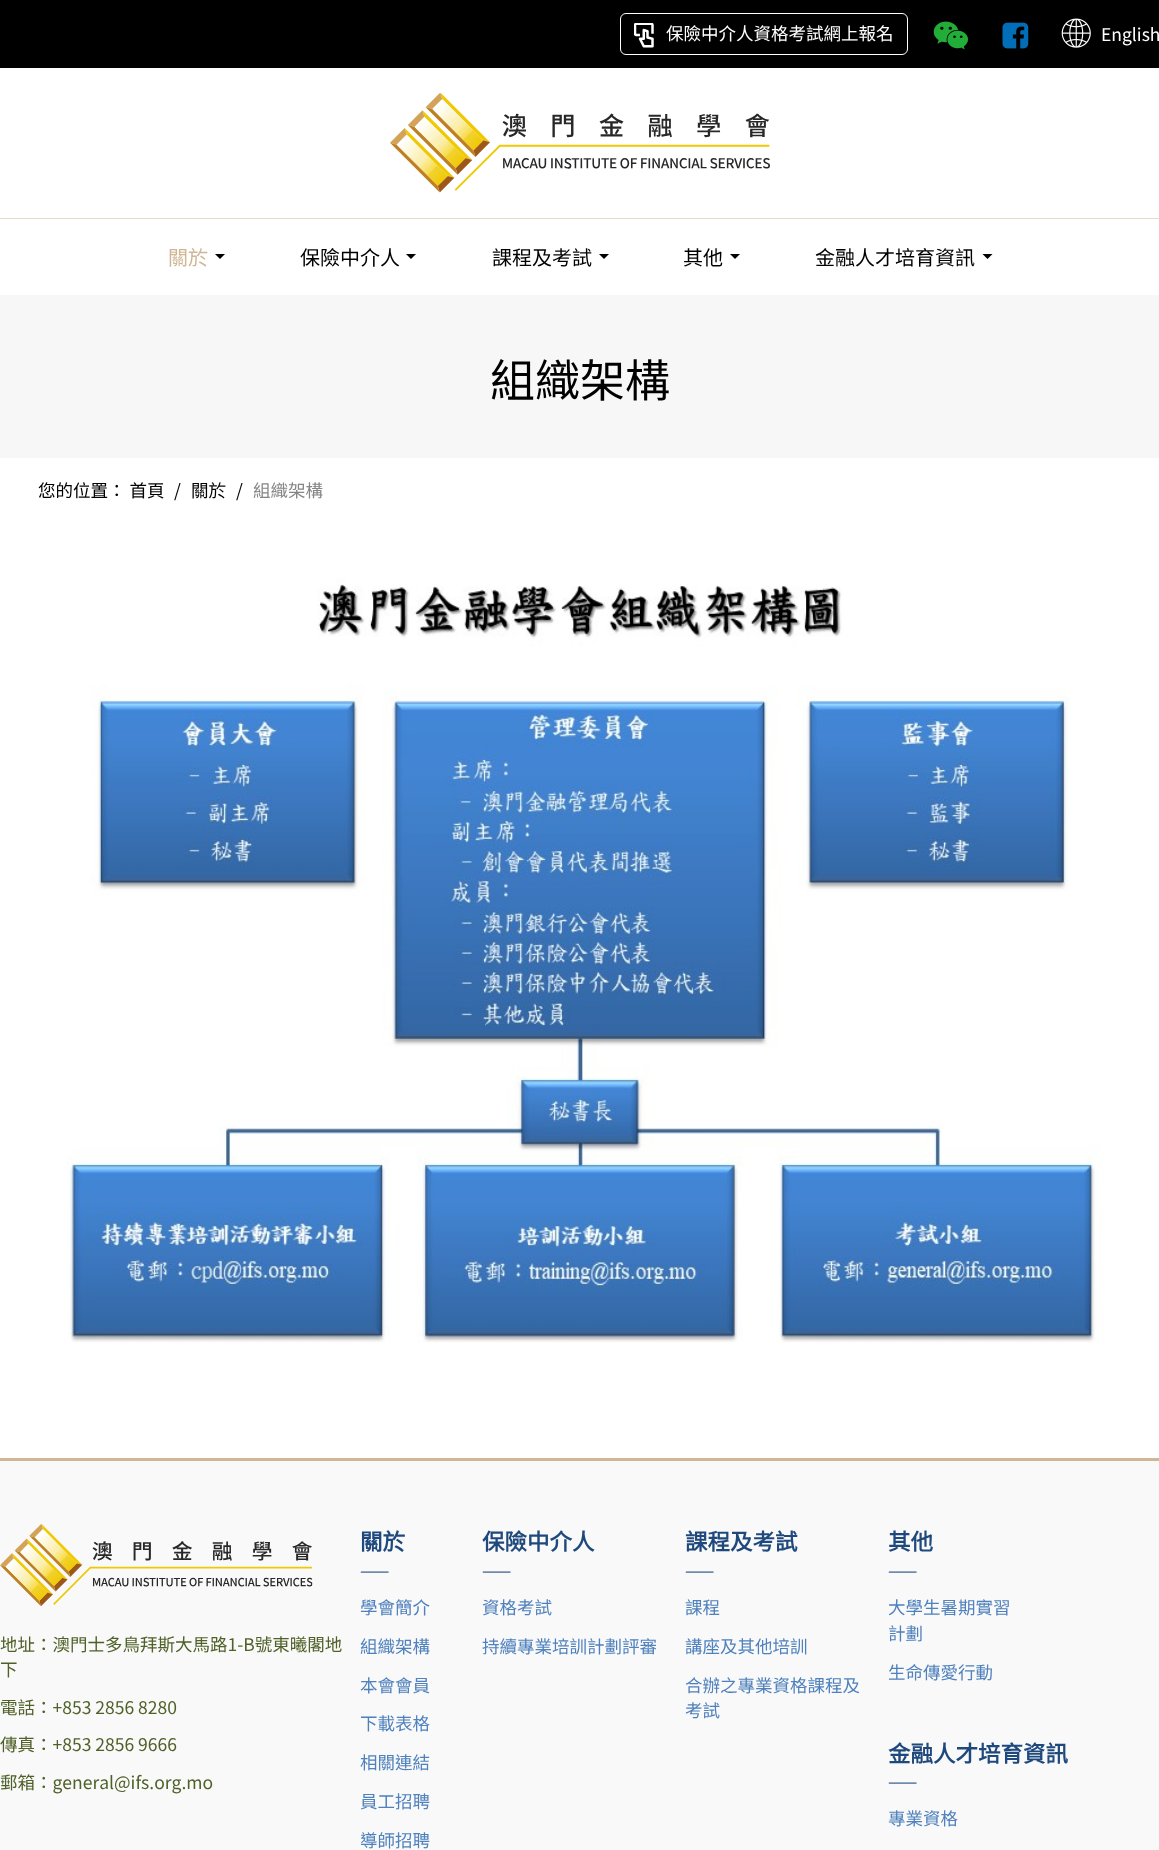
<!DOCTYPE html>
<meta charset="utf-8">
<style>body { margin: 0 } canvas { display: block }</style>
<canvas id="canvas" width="1159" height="1850"></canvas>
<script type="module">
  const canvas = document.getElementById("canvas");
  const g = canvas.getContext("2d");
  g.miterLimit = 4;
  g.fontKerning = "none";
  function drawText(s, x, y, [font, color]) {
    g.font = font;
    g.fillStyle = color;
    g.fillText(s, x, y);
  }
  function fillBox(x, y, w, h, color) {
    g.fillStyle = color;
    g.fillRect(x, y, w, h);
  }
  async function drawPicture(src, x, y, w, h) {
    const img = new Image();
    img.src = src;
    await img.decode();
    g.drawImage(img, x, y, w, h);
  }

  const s1 = ["100 17.5px Noto Sans HK", "#FFFFFF"];
  const s2 = ["100 20px Noto Sans HK", "#CFB795"];
  const s3 = ["100 20px Noto Sans HK", "#000000"];
  const s4 = ["100 45px Noto Sans HK", "#000000"];
  const s5 = ["100 17.5px Noto Sans HK", "#000000"];
  const s6 = ["100 17.5px Noto Sans HK", "#858585"];
  const s7 = ["100 17.5px Noto Sans HK", "#4F6128"];
  const s8 = ["bold 22.5px Noto Sans HK", "#1F497D"];
  const s9 = ["100 17.5px Noto Sans HK", "#1F497D"];
  const s10 = ["100 17.5px Noto Sans HK", "#4F81BD"];

  fillBox(0, 0, 1159, 1850, "#FFFFFF");
  fillBox(0, 0, 1159, 68, "#000000");
  g.beginPath();
  g.roundRect(620.5, 13.5, 287, 41, 5.5);
  g.strokeStyle = "#FFFFFF";
  g.stroke();
  await drawPicture("pic1.png", 634, 23, 20, 25);
  drawText("保險中介人資格考試網上報名", 666, 40, s1);
  await drawPicture("pic2.png", 933, 21, 35, 29);
  await drawPicture("pic3.png", 1002, 22, 27, 27);
  await drawPicture("pic4.png", 1061, 18, 30, 30);
  drawText("English", 1101, 41, s1);
  await drawPicture("pic5.png", 390, 93, 380, 100);
  fillBox(0, 218, 1159, 1, "#E7DBCA");
  drawText("關於", 168, 265, s2);
  g.fillStyle = "#000000";
  g.beginPath();
  g.moveTo(215, 254);
  g.lineTo(225, 254);
  g.lineTo(220, 259);
  g.closePath();
  g.fill();
  drawText("保險中介人", 300, 265, s3);
  g.beginPath();
  g.moveTo(406, 254);
  g.lineTo(416, 254);
  g.lineTo(411, 259);
  g.closePath();
  g.fill();
  drawText("課程及考試", 492, 265, s3);
  g.beginPath();
  g.moveTo(599, 254);
  g.lineTo(609, 254);
  g.lineTo(604, 259);
  g.closePath();
  g.fill();
  drawText("其他", 683, 265, s3);
  g.beginPath();
  g.moveTo(730, 254);
  g.lineTo(740, 254);
  g.lineTo(735, 259);
  g.closePath();
  g.fill();
  drawText("金融人才培育資訊", 815, 265, s3);
  g.beginPath();
  g.moveTo(982.5, 254);
  g.lineTo(992.5, 254);
  g.lineTo(987.5, 259);
  g.closePath();
  g.fill();
  fillBox(0, 295, 1159, 163, "#F7F7F7");
  drawText("組織架構", 490, 397, s4);
  drawText("您的位置： 首頁", 38, 497, s5);
  drawText("/", 174, 497, s5);
  drawText("關於", 191, 497, s5);
  drawText("/", 236, 497, s5);
  drawText("組織架構", 253, 497, s6);
  await drawPicture("pic6.png", 67, 578, 1037, 765);
  fillBox(0, 1458, 1159, 3, "#CFB795");
  fillBox(0, 1461, 1159, 389, "#F9F9F9");
  await drawPicture("pic7.png", 0, 1524, 313, 82);
  drawText("地址：澳門士多鳥拜斯大馬路1-B號東曦閣地", 0, 1651, s7);
  drawText("下", 0, 1676, s7);
  drawText("電話：+853 2856 8280", 0, 1714, s7);
  drawText("傳真：+853 2856 9666", 0, 1751, s7);
  drawText("郵箱：general@ifs.org.mo", 0, 1789, s7);
  drawText("關於", 360, 1550, s8);
  drawText("——", 360, 1577, s9);
  drawText("學會簡介", 360, 1614, s10);
  drawText("組織架構", 360, 1653, s10);
  drawText("本會會員", 360, 1692, s10);
  drawText("下載表格", 360, 1730, s10);
  drawText("相關連結", 360, 1769, s10);
  drawText("員工招聘", 360, 1808, s10);
  drawText("導師招聘", 360, 1847, s10);
  drawText("保險中介人", 482, 1550, s8);
  drawText("——", 482, 1577, s9);
  drawText("資格考試", 482, 1614, s10);
  drawText("持續專業培訓計劃評審", 482, 1653, s10);
  drawText("課程及考試", 685, 1550, s8);
  drawText("——", 685, 1577, s9);
  drawText("課程", 685, 1614, s10);
  drawText("講座及其他培訓", 685, 1653, s10);
  drawText("合辦之專業資格課程及", 685, 1692, s10);
  drawText("考試", 685, 1717, s10);
  drawText("其他", 888, 1550, s8);
  drawText("——", 888, 1577, s9);
  drawText("大學生暑期實習", 888, 1614, s10);
  drawText("計劃", 888, 1640, s10);
  drawText("生命傳愛行動", 888, 1679, s10);
  drawText("金融人才培育資訊", 888, 1762, s8);
  drawText("——", 888, 1788, s9);
  drawText("專業資格", 888, 1825, s10);
</script>
